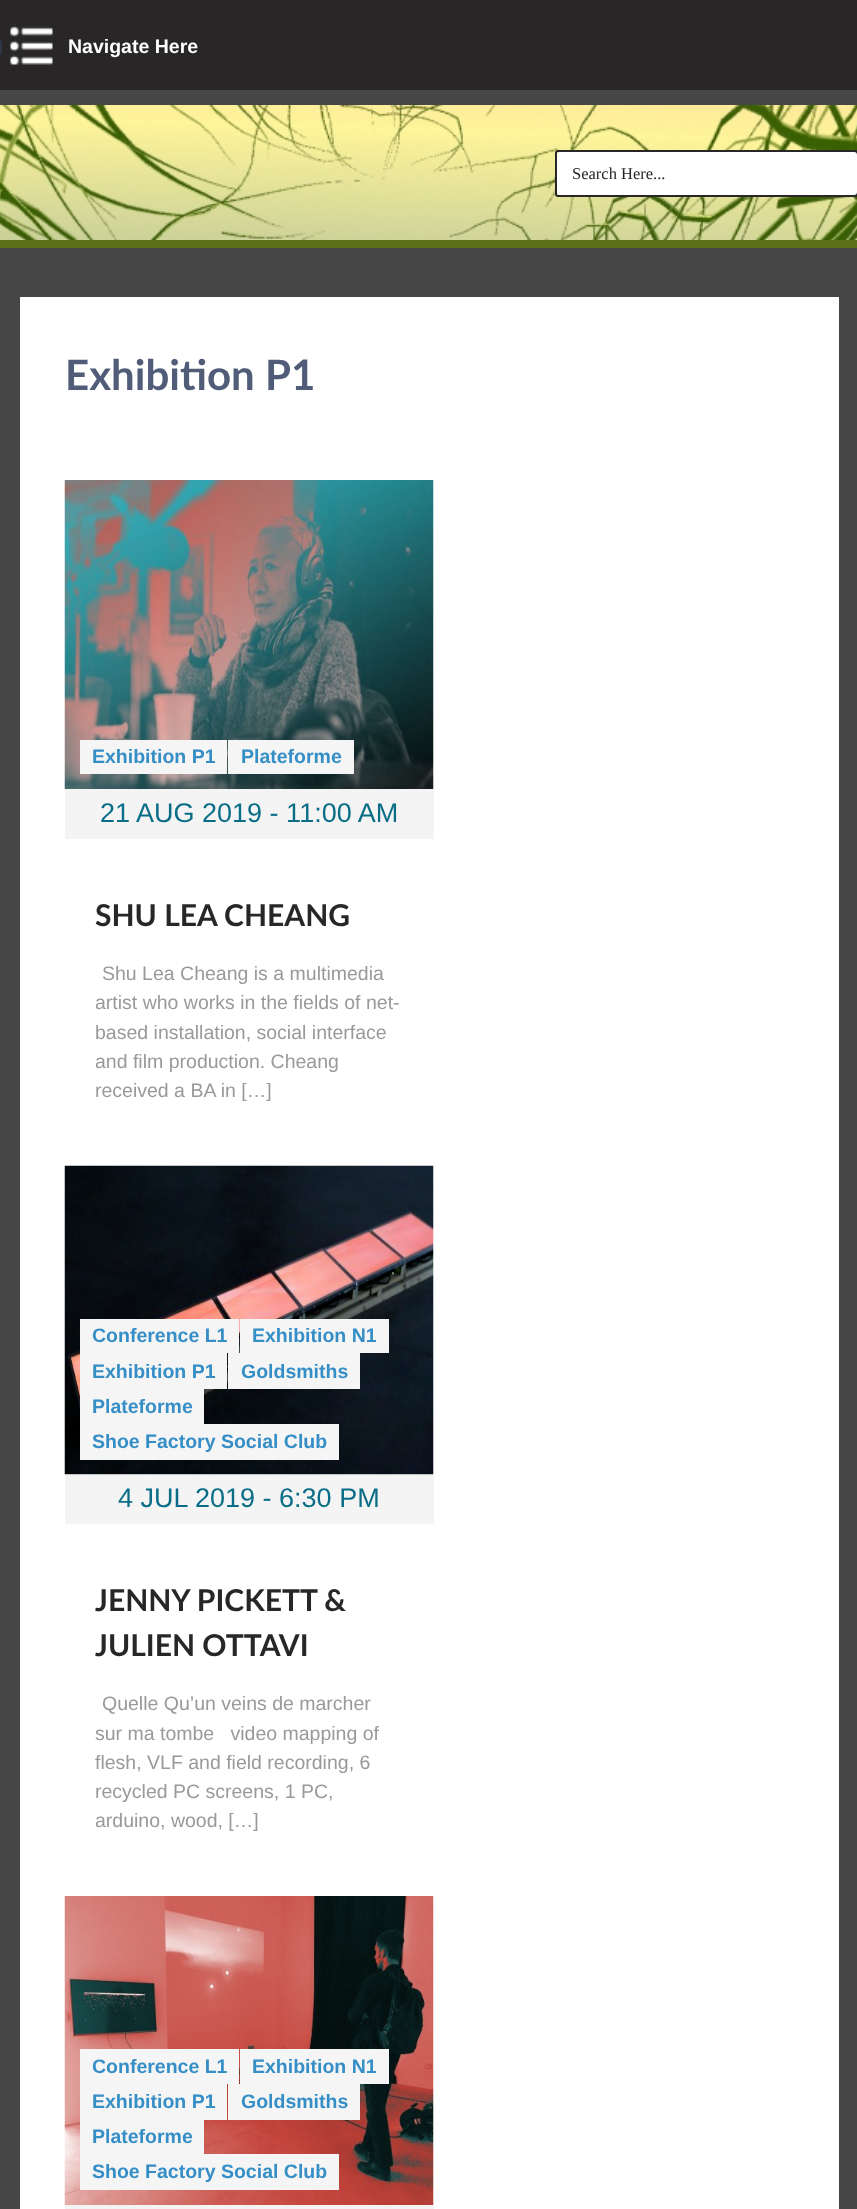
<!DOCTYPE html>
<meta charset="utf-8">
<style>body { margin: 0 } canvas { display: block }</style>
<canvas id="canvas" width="857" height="2209"></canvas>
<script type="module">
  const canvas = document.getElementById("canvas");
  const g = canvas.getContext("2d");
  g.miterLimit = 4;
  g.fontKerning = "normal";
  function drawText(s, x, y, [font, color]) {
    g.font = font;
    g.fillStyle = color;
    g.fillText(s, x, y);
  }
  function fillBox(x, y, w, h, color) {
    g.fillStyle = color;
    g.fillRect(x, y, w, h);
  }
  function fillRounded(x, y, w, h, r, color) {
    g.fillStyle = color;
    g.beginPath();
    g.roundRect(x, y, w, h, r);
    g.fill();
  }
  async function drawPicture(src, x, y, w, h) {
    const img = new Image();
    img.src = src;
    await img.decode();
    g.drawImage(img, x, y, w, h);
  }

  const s1 = ["bold 19.5px Liberation Sans", "#FFFFFF"];
  const s2 = ["16.5px Liberation Serif", "#282626"];
  const s3 = ["bold 42px Lato", "#505C78"];
  const s4 = ["bold 19.5px Liberation Sans", "#358EC6"];
  const s5 = ["27px Liberation Sans", "#0A6D87"];
  const s6 = ["bold 30px Lato", "#282626"];
  const s7 = ["19.5px Liberation Sans", "#999999"];

  fillBox(0, 0, 857, 2209, "#464646");
  fillBox(0, 0, 857, 90, "#282626");
  await drawPicture("pic1.png", 0, 26, 53, 39);
  drawText("Navigate Here", 68, 53, s1);
  await drawPicture("pic2.png", 0, 105, 857, 135);
  fillBox(0, 240, 857, 8, "#5B6F17");
  g.beginPath();
  g.roundRect(556, 151, 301, 45, 2);
  g.strokeStyle = "#282626";
  g.lineWidth = 2;
  g.stroke();
  fillRounded(557, 152, 300, 43, 3, "#FFFFFF");
  drawText("Search Here...", 572, 179, s2);
  fillBox(20, 297, 819, 1912, "#FFFFFF");
  drawText("Exhibition P1", 65, 390, s3);
  await drawPicture("pic3.png", 64, 480, 370, 309);
  fillBox(80, 740, 147, 34, "#F5F5F5");
  drawText("Exhibition P1", 92, 763, s4);
  fillBox(228, 740, 126, 34, "#F5F5F5");
  drawText("Plateforme", 241, 763, s4);
  fillBox(65, 789, 369, 50, "#F4F4F4");
  drawText("21 AUG 2019 - 11:00 AM", 100, 822, s5);
  drawText("SHU LEA CHEANG", 95, 926, s6);
  drawText("Shu Lea Cheang is a multimedia", 102, 980, s7);
  drawText("artist who works in the fields of net-", 95, 1009, s7);
  drawText("based installation, social interface", 95, 1039, s7);
  drawText("and film production. Cheang", 95, 1068, s7);
  drawText("received a BA in […]", 95, 1097, s7);
  await drawPicture("pic4.png", 64, 1165, 370, 310);
  fillBox(80, 1319, 159, 34, "#F5F5F5");
  drawText("Conference L1", 92, 1342, s4);
  fillBox(240, 1319, 149, 34, "#F5F5F5");
  drawText("Exhibition N1", 252, 1342, s4);
  fillBox(80, 1353, 147, 36, "#F5F5F5");
  drawText("Exhibition P1", 92, 1378, s4);
  fillBox(228, 1353, 132, 36, "#F5F5F5");
  drawText("Goldsmiths", 241, 1378, s4);
  fillBox(80, 1389, 124, 35, "#F5F5F5");
  drawText("Plateforme", 92, 1413, s4);
  fillBox(80, 1424, 259, 36, "#F5F5F5");
  drawText("Shoe Factory Social Club", 92, 1448, s4);
  fillBox(65, 1475, 369, 49, "#F4F4F4");
  drawText("4 JUL 2019 - 6:30 PM", 118, 1507, s5);
  drawText("JENNY PICKETT &", 95, 1611, s6);
  drawText("JULIEN OTTAVI", 95, 1656, s6);
  drawText("Quelle Qu’un veins de marcher", 102, 1710, s7);
  drawText("sur ma tombe   video mapping of", 95, 1740, s7);
  drawText("flesh, VLF and field recording, 6", 95, 1769, s7);
  drawText("recycled PC screens, 1 PC,", 95, 1798, s7);
  drawText("arduino, wood, […]", 95, 1827, s7);
  await drawPicture("pic5.png", 64, 1896, 370, 309);
  fillBox(80, 2049, 159, 35, "#F5F5F5");
  drawText("Conference L1", 92, 2073, s4);
  fillBox(240, 2049, 149, 35, "#F5F5F5");
  drawText("Exhibition N1", 252, 2073, s4);
  fillBox(80, 2084, 147, 36, "#F5F5F5");
  drawText("Exhibition P1", 92, 2108, s4);
  fillBox(228, 2084, 132, 36, "#F5F5F5");
  drawText("Goldsmiths", 241, 2108, s4);
  fillBox(80, 2120, 124, 34, "#F5F5F5");
  drawText("Plateforme", 92, 2143, s4);
  fillBox(80, 2154, 259, 36, "#F5F5F5");
  drawText("Shoe Factory Social Club", 92, 2178, s4);
  fillBox(65, 2205, 369, 4, "#F4F4F4");
</script>
